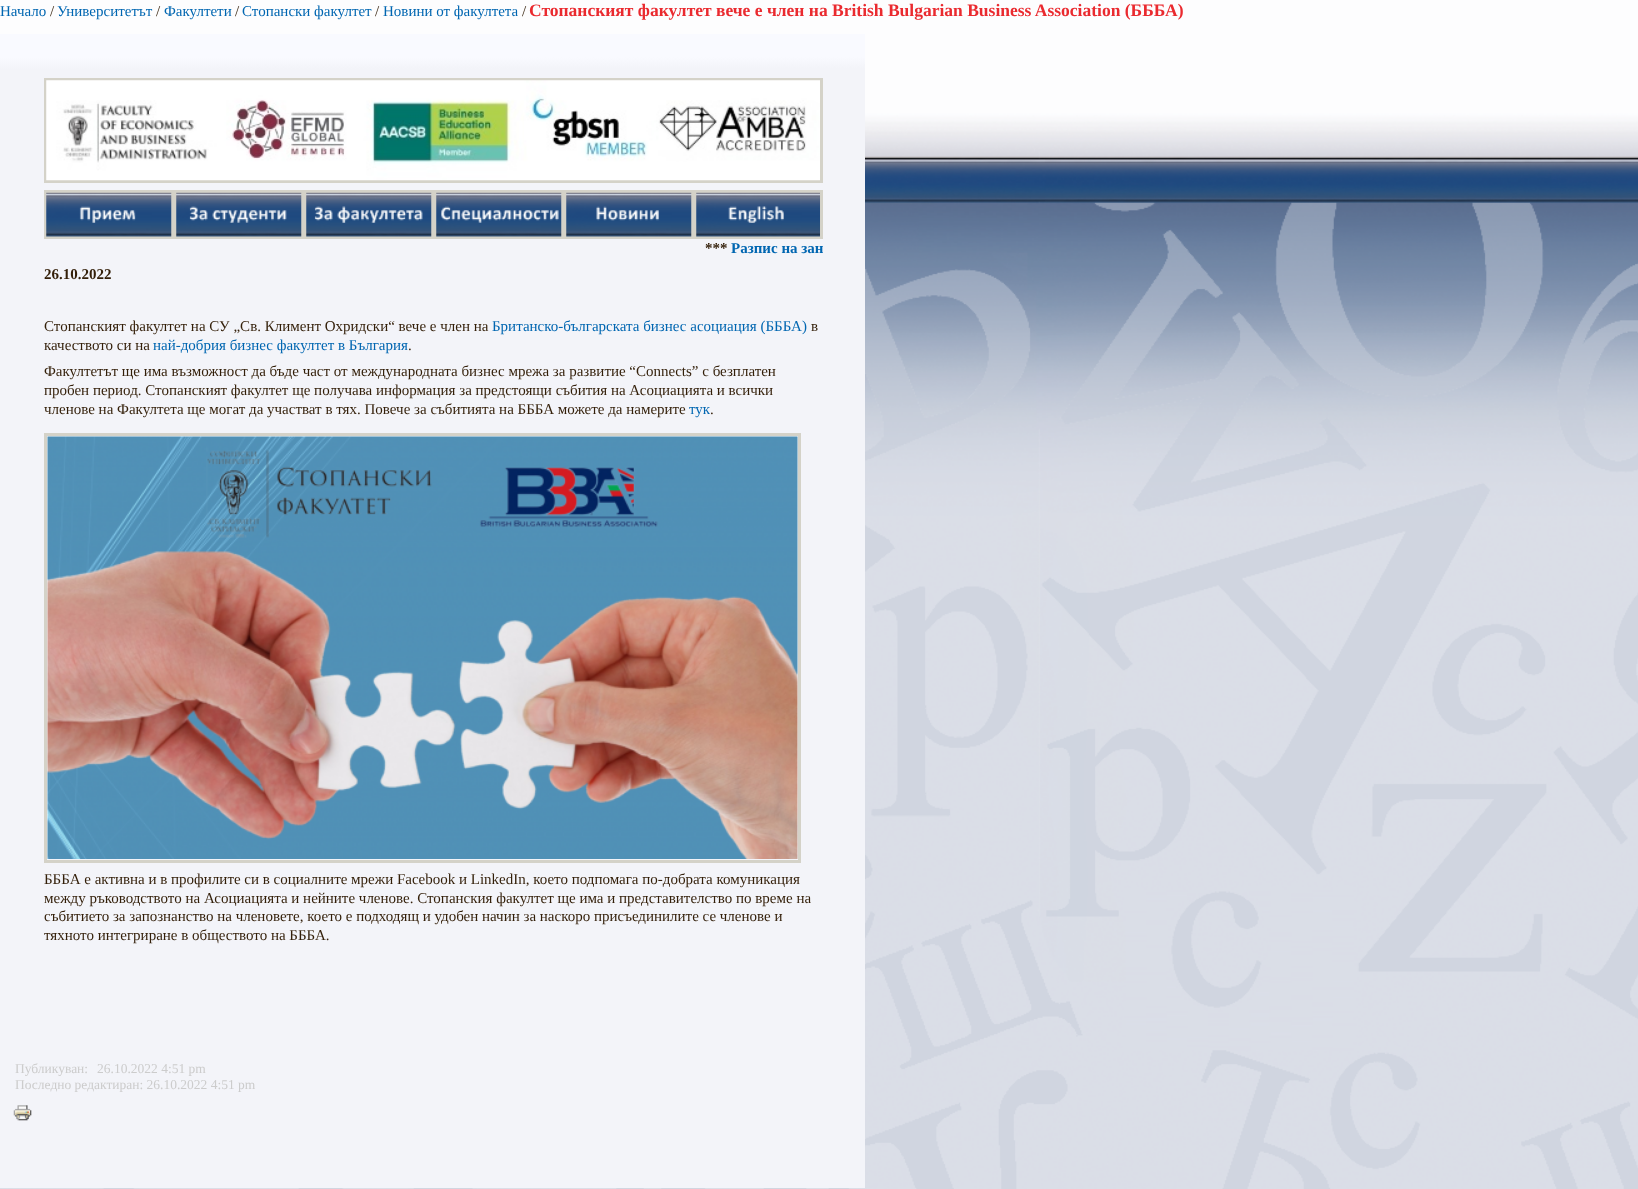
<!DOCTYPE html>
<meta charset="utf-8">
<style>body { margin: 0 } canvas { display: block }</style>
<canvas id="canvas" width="1638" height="1189"></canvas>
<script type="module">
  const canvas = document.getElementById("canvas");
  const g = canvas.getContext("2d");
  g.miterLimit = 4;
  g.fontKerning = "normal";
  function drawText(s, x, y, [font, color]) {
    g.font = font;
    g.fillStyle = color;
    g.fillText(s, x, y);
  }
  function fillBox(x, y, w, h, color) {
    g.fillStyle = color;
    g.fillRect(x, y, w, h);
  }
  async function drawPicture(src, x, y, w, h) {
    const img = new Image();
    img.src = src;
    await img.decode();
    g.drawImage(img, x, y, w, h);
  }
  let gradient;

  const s1 = ["15px Liberation Serif", "#0066B1"];
  const s2 = ["15px Liberation Serif", "#331F09"];
  const s3 = ["bold 17.5px Liberation Serif", "#EA2A2F"];
  const s4 = ["bold 15px Liberation Serif", "#331F09"];
  const s5 = ["bold 15px Liberation Serif", "#0066B1"];
  const s6 = ["13.5px Liberation Serif", "#CCCCCC"];

  fillBox(0, 0, 1638, 1189, "#FFFFFF");
  await drawPicture("pic1.png", 0, 0, 1638, 1189);
  drawText("Начало", 0, 16, s1);
  drawText("/", 50, 16, s2);
  drawText("Университетът", 57, 16, s1);
  drawText("/", 156, 16, s2);
  drawText("Факултети", 164, 16, s1);
  drawText("/", 235, 16, s2);
  drawText("Стопански факултет", 242, 16, s1);
  drawText("/", 375, 16, s2);
  drawText("Новини от факултета", 383, 16, s1);
  drawText("/", 522, 16, s2);
  drawText("Стопанският факултет вече е член на British Bulgarian Business Association (БББА)", 529, 16, s3);
  gradient = g.createLinearGradient(432, 34, 433, 1188);
  gradient.addColorStop(0.02, "#F9FAFF");
  gradient.addColorStop(0.03, "#F3F4F9");
  g.fillStyle = gradient;
  g.fillRect(0, 34, 865, 1154);
  g.strokeStyle = "#D4D2C8";
  g.lineWidth = 3;
  g.strokeRect(45.5, 79.5, 776, 102);
  await drawPicture("pic2.png", 46, 80, 774, 101);
  g.strokeRect(45.5, 191.5, 127, 46);
  await drawPicture("pic3.png", 46, 192, 126, 45);
  g.strokeRect(175.5, 191.5, 127, 46);
  await drawPicture("pic4.png", 176, 192, 126, 45);
  g.strokeRect(305.5, 191.5, 127, 46);
  await drawPicture("pic5.png", 306, 192, 126, 45);
  g.strokeRect(435.5, 191.5, 127, 46);
  await drawPicture("pic6.png", 436, 192, 126, 45);
  g.strokeRect(565.5, 191.5, 127, 46);
  await drawPicture("pic7.png", 566, 192, 126, 45);
  g.strokeRect(695.5, 191.5, 126, 46);
  await drawPicture("pic8.png", 696, 192, 124, 45);
  drawText("***", 705, 253, s4);
  drawText("Разпис на зан", 731, 253, s5);
  drawText("26.10.2022", 44, 279, s4);
  drawText("Стопанският факултет на СУ „Св. Климент Охридски“ вече е член на", 44, 331, s2);
  drawText("Британско-българската бизнес асоциация (БББА)", 492, 331, s1);
  drawText("в", 811, 331, s2);
  drawText("качеството си на", 44, 350, s2);
  drawText("най-добрия бизнес факултет в България", 153, 350, s1);
  drawText(".", 408, 350, s2);
  drawText("Факултетът ще има възможност да бъде част от международната бизнес мрежа за развитие “Connects” с безплатен", 44, 376, s2);
  drawText("пробен период. Стопанският факултет ще получава информация за предстоящи събития на Асоциацията и всички", 44, 395, s2);
  drawText("членове на Факултета ще могат да участват в тях. Повече за събитията на БББА можете да намерите", 44, 414, s2);
  drawText("тук", 689, 414, s1);
  drawText(".", 710, 414, s2);
  g.strokeRect(45.5, 434.5, 754, 427);
  await drawPicture("pic9.png", 47, 436, 751, 423);
  drawText("БББА е активна и в профилите си в социалните мрежи Facebook и LinkedIn, което подпомага по-добрата комуникация", 44, 884, s2);
  drawText("между ръководството на Асоциацията и нейните членове. Стопанския факултет ще има и представителство по време на", 44, 903, s2);
  drawText("събитието за запознанство на членовете, което е подходящ и удобен начин за наскоро присъединилите се членове и", 44, 921, s2);
  drawText("тяхното интегриране в обществото на БББА.", 44, 940, s2);
  drawText("Публикуван:", 15, 1073, s6);
  drawText("26.10.2022 4:51 pm", 97, 1073, s6);
  drawText("Последно редактиран: 26.10.2022 4:51 pm", 15, 1089, s6);
  await drawPicture("pic10.png", 13, 1105, 19, 16);
</script>
